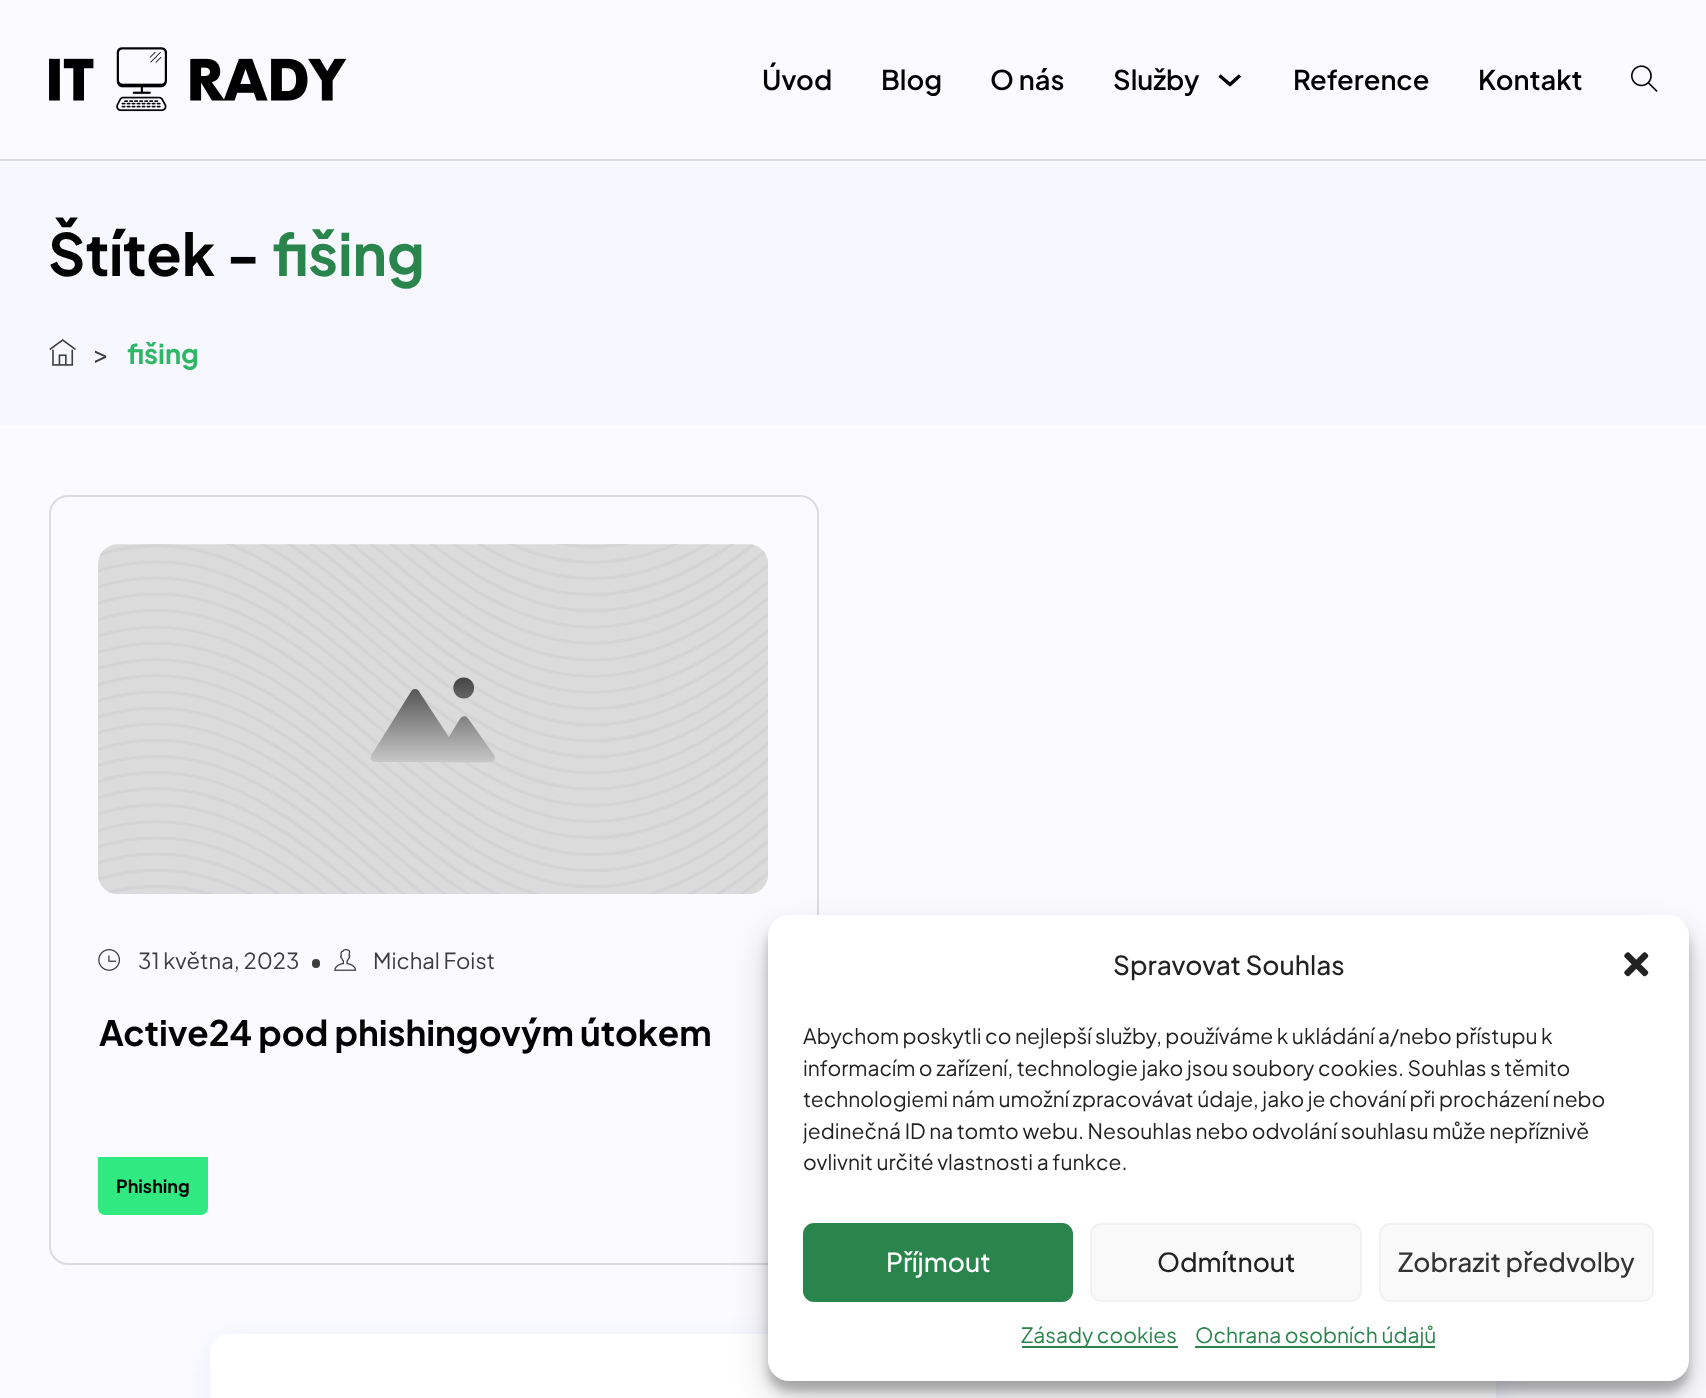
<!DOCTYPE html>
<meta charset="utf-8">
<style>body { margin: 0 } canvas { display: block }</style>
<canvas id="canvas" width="1706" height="1398"></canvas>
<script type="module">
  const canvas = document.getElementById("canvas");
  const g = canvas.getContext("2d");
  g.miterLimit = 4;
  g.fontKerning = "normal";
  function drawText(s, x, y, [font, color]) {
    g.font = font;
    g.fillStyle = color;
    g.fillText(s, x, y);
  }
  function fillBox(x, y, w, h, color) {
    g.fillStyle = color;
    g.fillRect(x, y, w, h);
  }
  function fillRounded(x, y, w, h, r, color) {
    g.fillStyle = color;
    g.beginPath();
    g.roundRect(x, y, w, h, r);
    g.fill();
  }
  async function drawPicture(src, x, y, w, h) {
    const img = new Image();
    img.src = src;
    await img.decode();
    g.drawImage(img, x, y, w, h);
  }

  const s1 = ["600 27.25px Plus Jakarta Sans", "#040303"];
  const s2 = ["bold 58px Plus Jakarta Sans", "#040303"];
  const s3 = ["bold 58px Plus Jakarta Sans", "#2A854D"];
  const s4 = ["27.25px Plus Jakarta Sans", "#3D3D3D"];
  const s5 = ["bold 27.25px Plus Jakarta Sans", "#2FB666"];
  const s6 = ["22px Plus Jakarta Sans", "#3D3D3D"];
  const s7 = ["bold 35px Plus Jakarta Sans", "#040303"];
  const s8 = ["bold 18px Plus Jakarta Sans", "#040303"];
  const s9 = ["500 26.25px Plus Jakarta Sans", "#222222"];
  const s10 = ["21px Plus Jakarta Sans", "#222222"];
  const s11 = ["500 26.25px Plus Jakarta Sans", "#FFFFFF"];
  const s12 = ["500 26.25px Plus Jakarta Sans", "#333333"];
  const s13 = ["21px Plus Jakarta Sans", "#2A854D"];

  fillBox(0, 0, 1706, 1398, "#F7F7FF");
  fillBox(0, 0, 1706, 159, "#FBFBFF");
  fillBox(0, 159, 1706, 2, "#DCDCDF");
  await drawPicture("pic1.png", 49, 47, 298, 65);
  drawText("Úvod", 762, 90, s1);
  drawText("Blog", 881, 90, s1);
  drawText("O nás", 990, 90, s1);
  drawText("Služby", 1113, 90, s1);
  g.beginPath();
  g.moveTo(1219.5, 75.5);
  g.lineTo(1230, 84.5);
  g.lineTo(1240, 75.5);
  g.strokeStyle = "#040303";
  g.lineWidth = 3.4;
  g.stroke();
  drawText("Reference", 1293, 90, s1);
  drawText("Kontakt", 1478, 90, s1);
  await drawPicture("pic2.png", 1631, 65, 27, 27);
  drawText("Štítek -", 48, 276, s2);
  drawText("fišing", 272, 276, s3);
  await drawPicture("pic3.png", 49, 339, 27, 27);
  drawText(">", 93, 364, s4);
  drawText("fišing", 127, 364, s5);
  fillBox(0, 425, 1706, 973, "#FBFBFF");
  g.beginPath();
  g.roundRect(50, 496, 768, 768, 18);
  g.strokeStyle = "#DCDCDF";
  g.lineWidth = 2;
  g.stroke();
  await drawPicture("pic4.png", 98, 544, 670, 350);
  await drawPicture("pic5.png", 98, 949, 23, 22);
  drawText("31 května, 2023", 138, 969, s6);
  fillRounded(312, 959, 8, 9, 4, "#3D3D3D");
  await drawPicture("pic6.png", 334, 949, 23, 22);
  drawText("Michal Foist", 373, 969, s6);
  drawText("Active24 pod phishingovým útokem", 99, 1046, s7);
  g.fillStyle = "#31E981";
  g.beginPath();
  g.roundRect(98, 1157, 110, 58, [0, 0, 7, 7]);
  g.fill();
  drawText("Phishing", 116, 1193, s8);
  g.fillStyle = "rgba(114, 114, 255, 0.12)";
  g.filter = "blur(17.5px)";
  g.beginPath();
  g.roundRect(210, 1342, 1286, 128, 19);
  g.fill();
  g.filter = "none";
  fillRounded(210, 1334, 1286, 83, 19, "#FFFFFF");
  g.fillStyle = "rgba(0, 0, 0, 0.23)";
  g.filter = "blur(5px)";
  g.beginPath();
  g.roundRect(768, 926, 921, 465, 21);
  g.fill();
  g.filter = "none";
  g.fillStyle = "rgba(0, 0, 0, 0.19)";
  g.filter = "blur(17.5px)";
  g.beginPath();
  g.roundRect(768, 933, 921, 465, 21);
  g.fill();
  g.filter = "none";
  fillRounded(768, 915, 921, 466, 21, "#FFFFFF");
  drawText("Spravovat Souhlas", 1113, 975, s9);
  await drawPicture("pic7.png", 1624, 952, 25, 25);
  drawText("Abychom poskytli co nejlepší služby, používáme k ukládání a/nebo přístupu k", 803, 1044, s10);
  drawText("informacím o zařízení, technologie jako jsou soubory cookies. Souhlas s těmito", 803, 1076, s10);
  drawText("technologiemi nám umožní zpracovávat údaje, jako je chování při procházení nebo", 803, 1107, s10);
  g.save();
  g.beginPath();
  g.rect(803, 1022, 851, 166);
  g.clip();
  drawText("jedinečná ID na tomto webu. Nesouhlas nebo odvolání souhlasu může nepříznivě", 803, 1139, s10);
  g.restore();
  drawText("ovlivnit určité vlastnosti a funkce.", 803, 1170, s10);
  g.fillStyle = "#2A854D";
  g.beginPath();
  g.roundRect(804, 1224, 268, 77, 10);
  g.fill();
  g.strokeStyle = "#2A854D";
  g.stroke();
  drawText("Příjmout", 886, 1272, s11);
  g.fillStyle = "#F9F9F9";
  g.beginPath();
  g.roundRect(1091, 1224, 270, 77, 10);
  g.fill();
  g.strokeStyle = "#F2F2F2";
  g.stroke();
  drawText("Odmítnout", 1157, 1272, s9);
  g.fillStyle = "#F9F9F9";
  g.beginPath();
  g.roundRect(1380, 1224, 273, 77, 10);
  g.fill();
  g.stroke();
  drawText("Zobrazit předvolby", 1398, 1272, s12);
  fillBox(1022, 1346, 156, 2, "#2A854D");
  drawText("Zásady cookies", 1021, 1343, s13);
  fillBox(1195, 1346, 240, 2, "#2A854D");
  drawText("Ochrana osobních údajů", 1195, 1343, s13);
</script>
